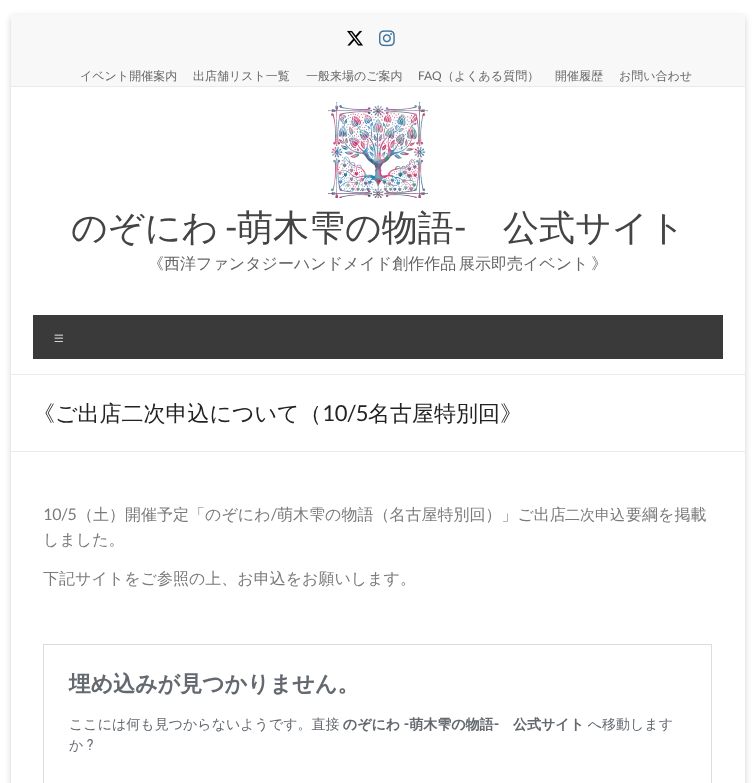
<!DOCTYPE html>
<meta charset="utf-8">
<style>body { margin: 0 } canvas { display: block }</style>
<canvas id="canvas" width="756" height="783"></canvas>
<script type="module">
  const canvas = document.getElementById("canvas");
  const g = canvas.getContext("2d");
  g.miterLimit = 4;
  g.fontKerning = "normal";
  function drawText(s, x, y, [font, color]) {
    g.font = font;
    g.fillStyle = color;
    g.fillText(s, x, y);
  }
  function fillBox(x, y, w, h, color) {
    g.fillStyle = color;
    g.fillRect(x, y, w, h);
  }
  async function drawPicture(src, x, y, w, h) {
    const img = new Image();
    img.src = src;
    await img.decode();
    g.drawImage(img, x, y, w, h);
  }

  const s1 = ["500 12px WenQuanYi Zen Hei", "#666666"];
  const s2 = ["12px Lato", "#666666"];
  const s3 = ["500 36px WenQuanYi Zen Hei", "#444444"];
  const s4 = ["36px Lato", "#444444"];
  const s5 = ["500 16px WenQuanYi Zen Hei", "#666666"];
  const s6 = ["300 20px Lato", "#FFFFFF"];
  const s7 = ["500 22px WenQuanYi Zen Hei", "#222222"];
  const s8 = ["22px Lato", "#222222"];
  const s9 = ["16px Lato", "#7A7A7A"];
  const s10 = ["500 16px WenQuanYi Zen Hei", "#7A7A7A"];
  const s11 = ["500 15px WenQuanYi Zen Hei", "#7A7A7A"];

  fillBox(0, 0, 756, 783, "#FFFFFF");
  g.save();
  g.beginPath();
  g.moveTo(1, 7);
  g.lineTo(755, 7);
  g.lineTo(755, 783);
  g.lineTo(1, 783);
  g.closePath();
  g.moveTo(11, 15);
  g.lineTo(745, 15);
  g.lineTo(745, 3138);
  g.lineTo(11, 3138);
  g.closePath();
  g.clip("evenodd");
  g.fillStyle = "rgba(100, 100, 100, 0.3)";
  g.filter = "blur(3px)";
  g.beginPath();
  g.rect(11, 17, 734, 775);
  g.fill();
  g.filter = "none";
  g.restore();
  fillBox(11, 15, 734, 71, "#F8F8F8");
  fillBox(11, 86, 734, 1, "#EAEAEA");
  await drawPicture("pic1.png", 347, 30, 16, 16);
  await drawPicture("pic2.png", 379, 30, 16, 17);
  drawText("イベント開催案内", 80, 80, s1);
  drawText("出店舗リスト一覧", 193, 80, s1);
  drawText("一般来場のご案内", 306, 80, s1);
  drawText("FAQ", 418, 80, s2);
  drawText("（よくある質問）", 442, 80, s1);
  drawText("開催履歴", 555, 80, s1);
  drawText("お問い合わせ", 619, 80, s1);
  fillBox(11, 374, 734, 1, "#EAEAEA");
  await drawPicture("pic3.png", 328, 102, 100, 96);
  drawText("のぞにわ", 71, 240, s3);
  drawText("-", 225, 240, s4);
  drawText("萌木雫の物語", 237, 240, s3);
  drawText("-", 454, 240, s4);
  drawText("公式サイト", 503, 240, s3);
  g.wordSpacing = "-2px";
  drawText("《西洋ファンタジーハンドメイド創作作品 展示即売イベント 》", 148, 269, s5);
  fillBox(33, 315, 690, 44, "#3A3A3A");
  g.wordSpacing = "0px";
  drawText("≡", 53, 345, s6);
  fillBox(11, 451, 734, 1, "#EAEAEA");
  drawText("《ご出店二次申込について（", 33, 421, s7);
  drawText("10/5", 322, 421, s8);
  drawText("名古屋特別回》", 368, 421, s7);
  drawText("10/5", 43, 520, s9);
  drawText("（土）開催予定「のぞにわ", 77, 520, s10);
  drawText("/", 271, 520, s9);
  drawText("萌木雫の物語（名古屋特別回）」ご出店", 277, 520, s10);
  drawText("二次申込", 565, 520, s11);
  drawText("要綱を掲載", 626, 520, s10);
  drawText("しました。", 43, 545, s10);
  drawText("下記サイトをご参照の上、お申込をお願いします。", 43, 584, s10);
  await drawPicture("pic4.png", 43, 644, 669, 139);
</script>
